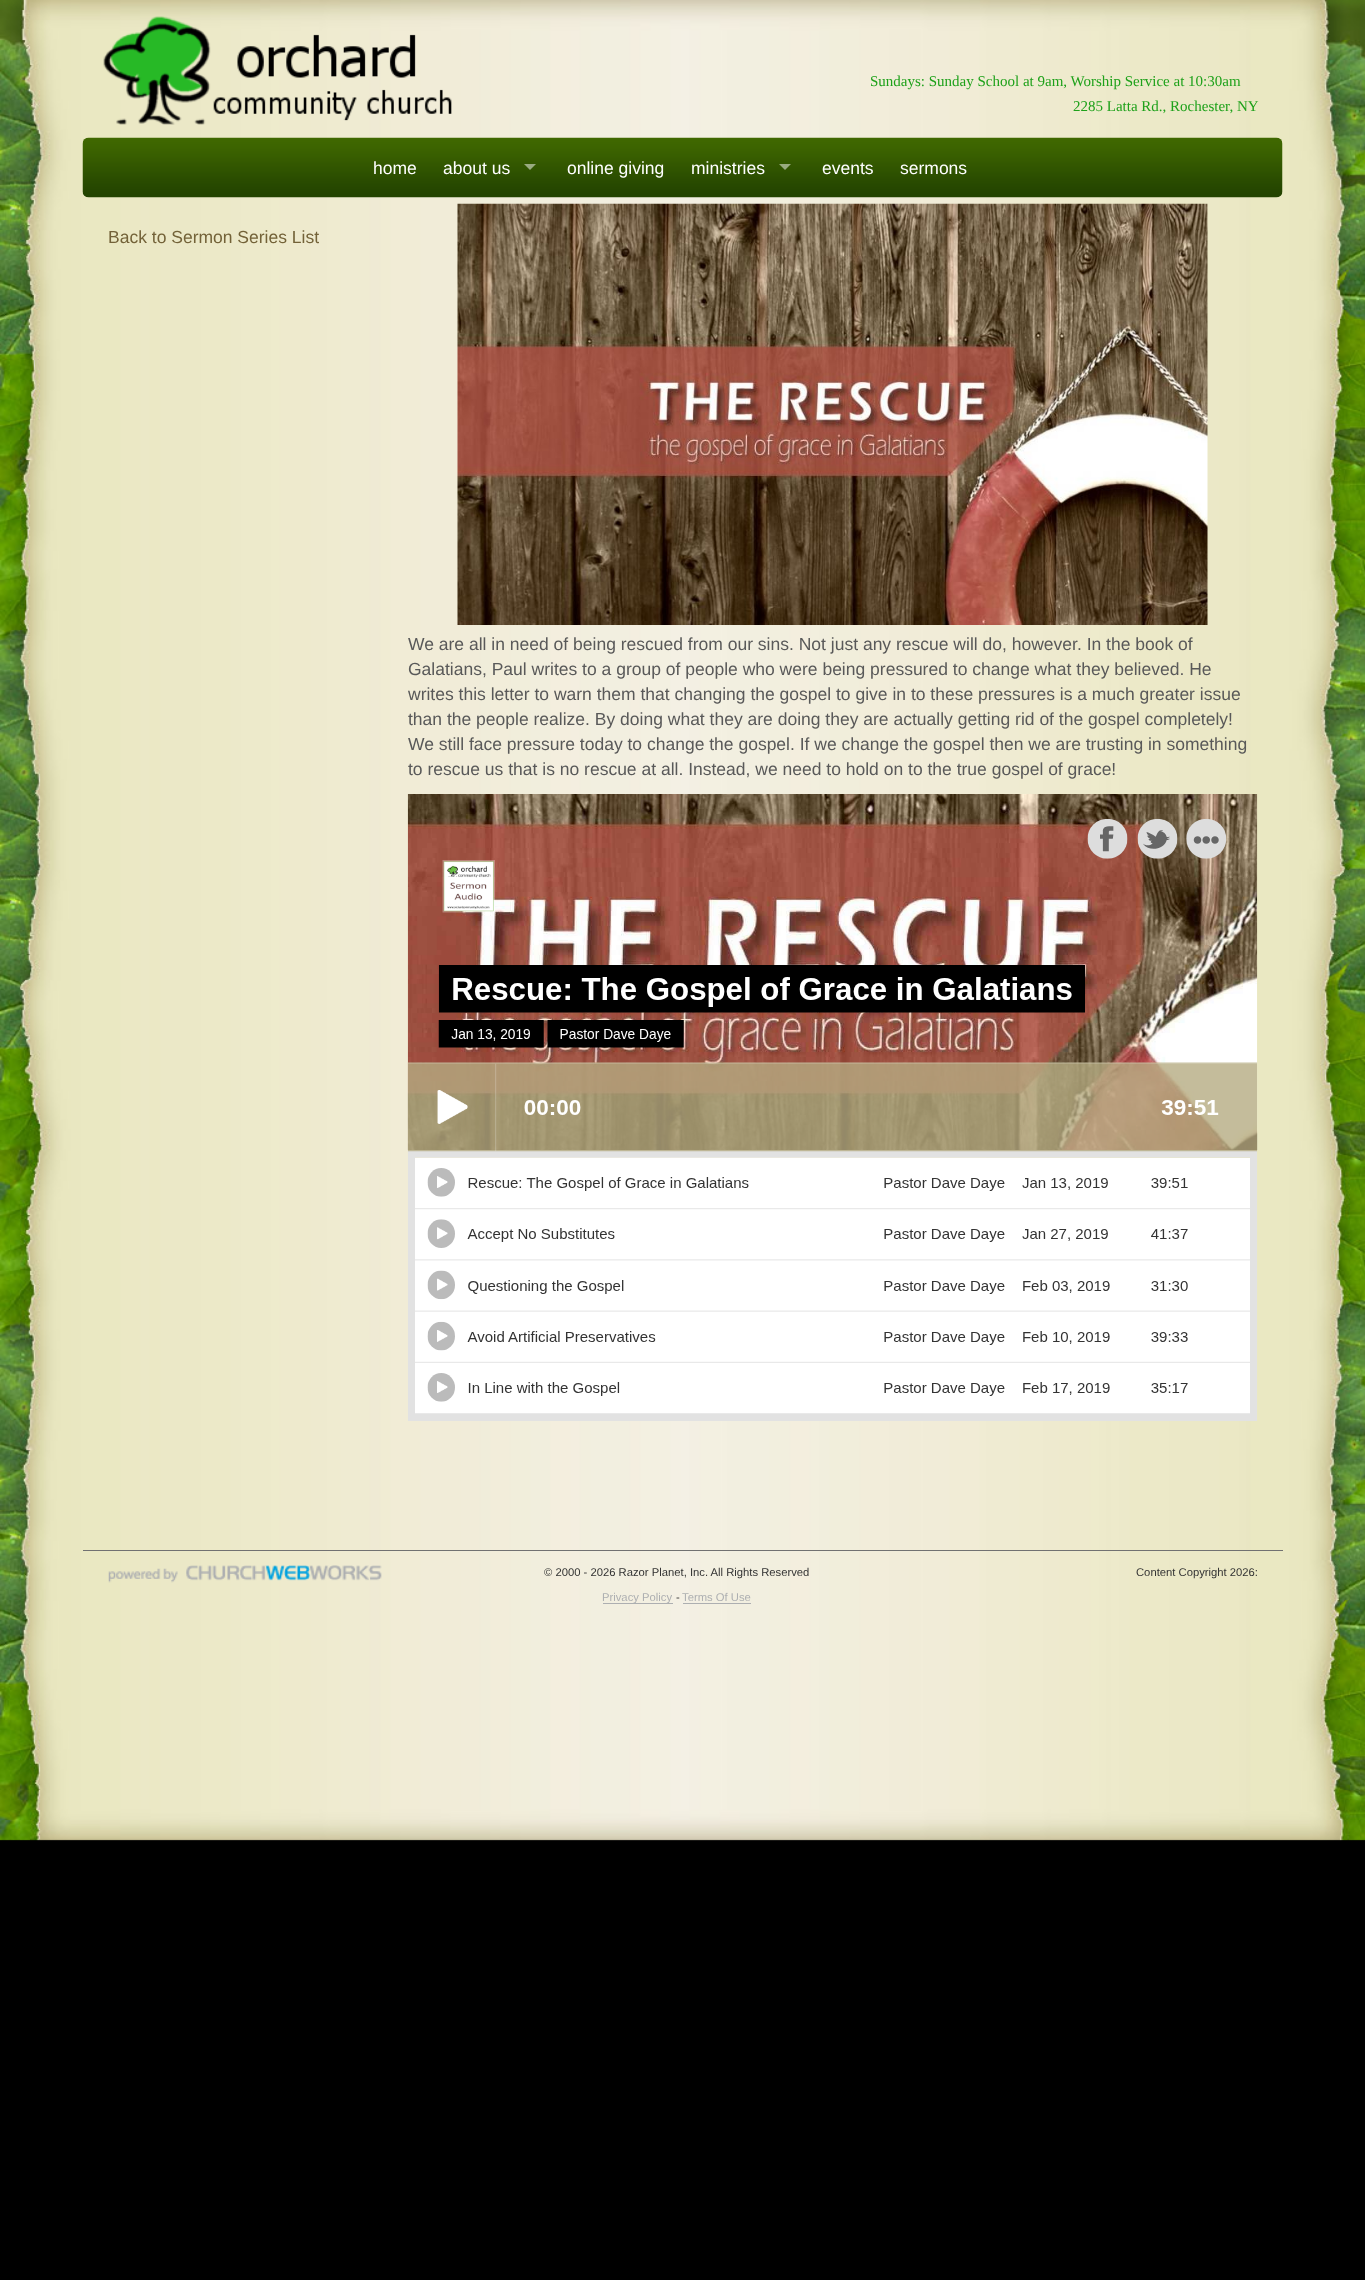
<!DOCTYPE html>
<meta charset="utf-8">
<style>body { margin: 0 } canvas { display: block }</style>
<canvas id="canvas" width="1365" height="2280"></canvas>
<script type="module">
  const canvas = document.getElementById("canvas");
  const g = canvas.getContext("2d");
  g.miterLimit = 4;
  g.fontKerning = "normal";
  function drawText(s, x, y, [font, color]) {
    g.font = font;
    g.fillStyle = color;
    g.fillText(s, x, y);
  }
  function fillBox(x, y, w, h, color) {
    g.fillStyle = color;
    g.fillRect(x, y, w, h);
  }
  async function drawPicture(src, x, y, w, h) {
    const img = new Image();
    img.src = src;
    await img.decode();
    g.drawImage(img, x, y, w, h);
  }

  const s1 = ["15px Liberation Serif", "#1EA11A"];
  const s2 = ["17.5px Liberation Sans", "#FFFFFF"];
  const s3 = ["17.5px Liberation Sans", "#736238"];
  const s4 = ["17.5px Liberation Sans", "#595959"];
  const s5 = ["11.25px Liberation Sans", "#333333"];
  const s6 = ["11.25px Liberation Sans", "#ADAFB1"];

  fillBox(0, 0, 1365, 2280, "#000000");
  await drawPicture("pic1.png", 0, 0, 1365, 1841);
  await drawPicture("pic2.png", 103, 16, 349, 109);
  drawText("Sundays: Sunday School at 9am, Worship Service at 10:30am", 870, 86, s1);
  drawText("2285 Latta Rd., Rochester, NY", 1073, 111, s1);
  await drawPicture("pic3.png", 82, 137, 1201, 61);
  drawText("home", 373, 174, s2);
  drawText("about us", 443, 174, s2);
  g.fillStyle = "rgba(255, 255, 255, 0.5)";
  g.beginPath();
  g.moveTo(524, 164);
  g.lineTo(536, 164);
  g.lineTo(530, 170);
  g.closePath();
  g.fill();
  drawText("online giving", 567, 174, s2);
  drawText("ministries", 691, 174, s2);
  g.fillStyle = "rgba(255, 255, 255, 0.5)";
  g.beginPath();
  g.moveTo(779, 164);
  g.lineTo(791, 164);
  g.lineTo(785, 170);
  g.closePath();
  g.fill();
  drawText("events", 822, 174, s2);
  drawText("sermons", 900, 174, s2);
  drawText("Back to Sermon Series List", 108, 243, s3);
  await drawPicture("pic4.png", 457, 203, 751, 422);
  drawText("We are all in need of being rescued from our sins. Not just any rescue will do, however. In the book of", 408, 650, s4);
  drawText("Galatians, Paul writes to a group of people who were being pressured to change what they believed. He", 408, 675, s4);
  drawText("writes this letter to warn them that changing the gospel to give in to these pressures is a much greater issue", 408, 700, s4);
  drawText("than the people realize. By doing what they are doing they are actually getting rid of the gospel completely!", 408, 725, s4);
  drawText("We still face pressure today to change the gospel. If we change the gospel then we are trusting in something", 408, 750, s4);
  drawText("to rescue us that is no rescue at all. Instead, we need to hold on to the true gospel of grace!", 408, 775, s4);
  await drawPicture("pic5.png", 407, 794, 851, 627);
  fillBox(83, 1550, 1200, 1, "#717171");
  await drawPicture("pic6.png", 108, 1565, 274, 18);
  drawText("© 2000 - 2026 Razor Planet, Inc. All Rights Reserved", 544, 1576, s5);
  fillBox(603, 1603, 70, 1, "#ADAFB1");
  drawText("Privacy Policy", 602, 1601, s6);
  drawText("-", 676, 1601, s5);
  drawText("Terms Of Use", 682, 1601, s6);
  fillBox(683, 1603, 68, 1, "#ADAFB1");
  drawText("Content Copyright 2026:", 1136, 1576, s5);
</script>
